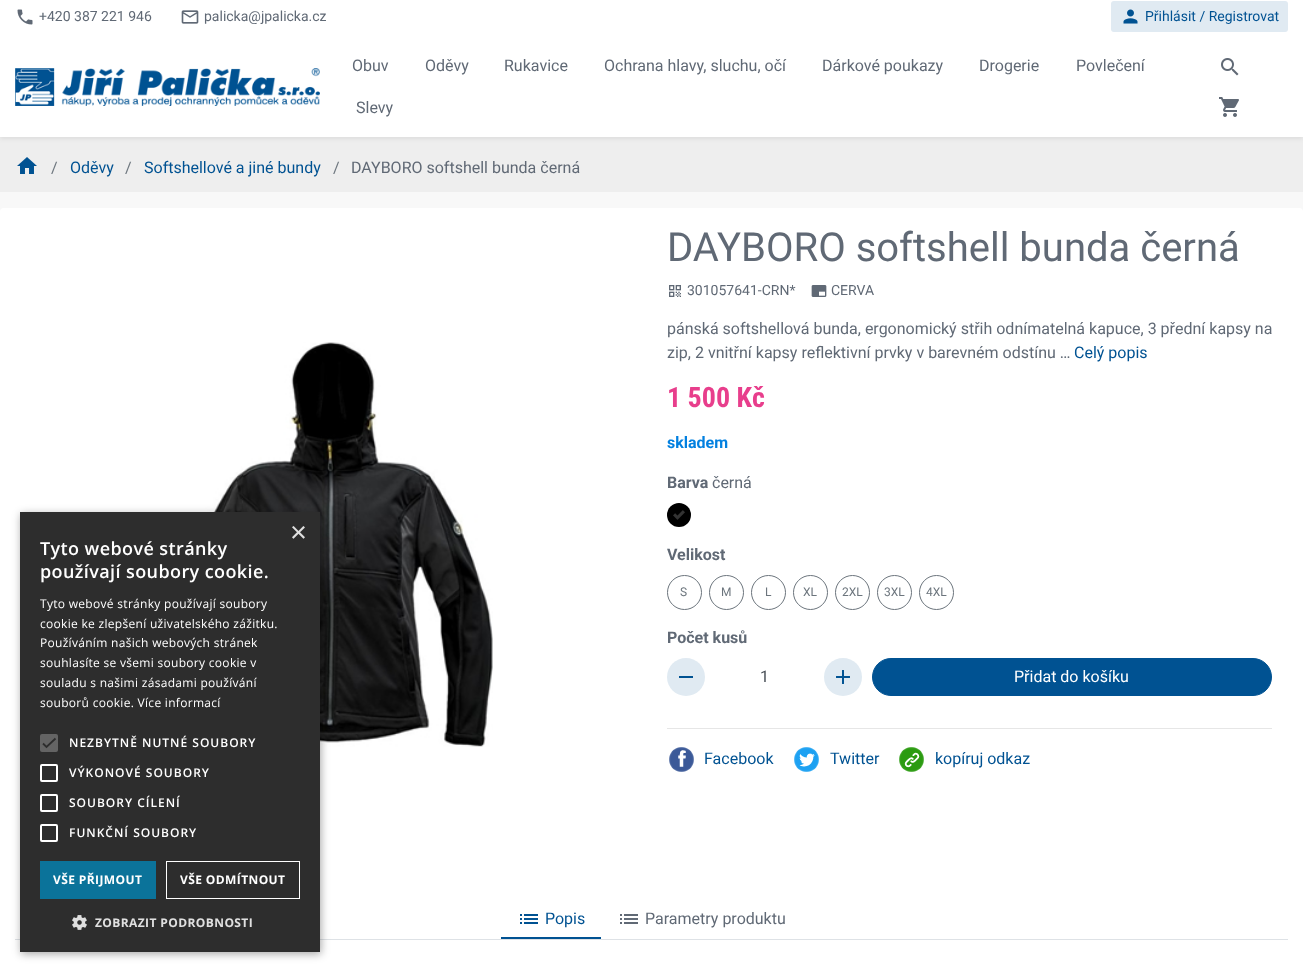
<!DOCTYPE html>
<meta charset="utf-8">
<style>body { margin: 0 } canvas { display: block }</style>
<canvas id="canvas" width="1303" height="972"></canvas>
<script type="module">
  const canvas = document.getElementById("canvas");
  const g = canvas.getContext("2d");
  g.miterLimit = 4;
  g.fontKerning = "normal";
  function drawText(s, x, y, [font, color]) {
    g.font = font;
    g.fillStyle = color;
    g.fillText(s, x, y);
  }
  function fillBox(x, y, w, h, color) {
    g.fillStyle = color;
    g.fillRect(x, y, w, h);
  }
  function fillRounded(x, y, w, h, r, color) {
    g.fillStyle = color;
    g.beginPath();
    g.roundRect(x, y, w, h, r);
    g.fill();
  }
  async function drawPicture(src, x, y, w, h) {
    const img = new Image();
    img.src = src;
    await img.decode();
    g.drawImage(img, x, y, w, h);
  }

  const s1 = ["14px Roboto", "#606975"];
  const s2 = ["14px Roboto", "#005292"];
  const s3 = ["16px Roboto", "#606975"];
  const s4 = ["16px Roboto", "#6C757D"];
  const s5 = ["16px Roboto", "#005292"];
  const s6 = ["29px Liberation Sans", "#E0E0E0"];
  const s7 = ["600 18px Open Sans", "#FFFFFF"];
  const s8 = ["12px Open Sans", "#FFFFFF"];
  const s9 = ["600 12px Open Sans", "#FFFFFF"];
  const s10 = ["bold 12px Open Sans", "#FFFFFF"];
  const s11 = ["bold 12px Open Sans", "#E0E0E0"];
  const s12 = ["40px Roboto", "#606975"];
  const s13 = ["bold 28px Roboto Condensed", "#E83E8C"];
  const s14 = ["bold 16px Roboto", "#0280E0"];
  const s15 = ["bold 16px Roboto", "#606975"];
  const s16 = ["12px Roboto", "#6C757D"];
  const s17 = ["16px Roboto", "#495057"];
  const s18 = ["16px Roboto", "#FFFFFF"];

  fillBox(0, 0, 1303, 972, "#F8F8F8");
  fillBox(0, 137, 1303, 55, "#EEEEEE");
  g.fillStyle = "rgba(0, 0, 0, 0.07)";
  g.filter = "blur(2px)";
  g.beginPath();
  g.rect(0, 39, 1303, 100);
  g.fill();
  g.filter = "none";
  fillBox(0, 0, 1303, 137, "#FFFFFF");
  await drawPicture("pic1.png", 17, 9, 16, 16);
  drawText("+420 387 221 946", 39, 21, s1);
  await drawPicture("pic2.png", 181, 10, 18, 14);
  drawText("palicka@jpalicka.cz", 204, 21, s1);
  fillRounded(1111, 1, 177, 31, 3, "#E0EAF2");
  await drawPicture("pic3.png", 1123, 9, 15, 15);
  drawText("Přihlásit / Registrovat", 1145, 21, s2);
  await drawPicture("pic4.png", 15, 68, 305, 38);
  drawText("Obuv", 352, 71, s3);
  drawText("Oděvy", 425, 71, s3);
  drawText("Rukavice", 504, 71, s3);
  drawText("Ochrana hlavy, sluchu, očí", 604, 71, s3);
  drawText("Dárkové poukazy", 822, 71, s3);
  drawText("Drogerie", 979, 71, s3);
  drawText("Povlečení", 1076, 71, s3);
  drawText("Slevy", 356, 113, s3);
  await drawPicture("pic5.png", 1221, 58, 18, 18);
  await drawPicture("pic6.png", 1219, 97, 20, 20);
  await drawPicture("pic7.png", 17, 157, 20, 17);
  drawText("/", 51, 173, s4);
  drawText("Oděvy", 70, 173, s5);
  drawText("/", 125, 173, s4);
  drawText("Softshellové a jiné bundy", 144, 173, s5);
  drawText("/", 333, 173, s4);
  drawText("DAYBORO softshell bunda černá", 351, 173, s3);
  fillRounded(0, 208, 1303, 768, 4, "#FFFFFF");
  await drawPicture("pic9.png", 175, 342, 318, 405);
  fillBox(15, 939, 1273, 1, "#DEE2E6");
  g.fillStyle = "rgba(0, 0, 0, 0.35)";
  g.filter = "blur(4px)";
  g.beginPath();
  g.rect(21, 514, 300, 440);
  g.fill();
  g.filter = "none";
  fillBox(20, 512, 300, 440, "#2D2D2D");
  drawText("×", 290, 542, s6);
  g.letterSpacing = "0.4px";
  drawText("Tyto webové stránky", 40, 555, s7);
  drawText("používají soubory cookie.", 40, 578, s7);
  g.letterSpacing = "0.3px";
  drawText("Tyto webové stránky používají soubory", 40, 608, s8);
  drawText("cookie ke zlepšení uživatelského zážitku.", 40, 628, s8);
  drawText("Používáním našich webových stránek", 40, 647, s8);
  drawText("souhlasíte se všemi soubory cookie v", 40, 667, s8);
  drawText("souladu s našimi zásadami používání", 40, 687, s8);
  drawText("souborů cookie. Více informací", 40, 707, s8);
  fillRounded(40, 734, 18, 18, 2, "#646464");
  g.beginPath();
  g.moveTo(43, 743.5);
  g.lineTo(46.5, 747);
  g.lineTo(55.5, 738.5);
  g.strokeStyle = "#2D2D2D";
  g.lineWidth = 1.8;
  g.stroke();
  g.letterSpacing = "1px";
  drawText("NEZBYTNĚ NUTNÉ SOUBORY", 69, 747, s9);
  g.beginPath();
  g.roundRect(41, 765, 16, 16, 1);
  g.strokeStyle = "#FFFFFF";
  g.lineWidth = 2;
  g.stroke();
  drawText("VÝKONOVÉ SOUBORY", 69, 777, s9);
  g.beginPath();
  g.roundRect(41, 795, 16, 16, 1);
  g.stroke();
  drawText("SOUBORY CÍLENÍ", 69, 807, s9);
  g.beginPath();
  g.roundRect(41, 825, 16, 16, 1);
  g.stroke();
  drawText("FUNKČNÍ SOUBORY", 69, 837, s9);
  fillBox(40, 861, 116, 38, "#0B739A");
  g.letterSpacing = "0.4px";
  drawText("VŠE PŘIJMOUT", 53, 884, s10);
  g.lineWidth = 1;
  g.strokeRect(166.5, 861.5, 133, 37);
  drawText("VŠE ODMÍTNOUT", 180, 884, s10);
  await drawPicture("pic8.png", 72, 915, 15, 15);
  drawText("ZOBRAZIT PODROBNOSTI", 95, 927, s11);
  g.letterSpacing = "0px";
  drawText("DAYBORO softshell bunda černá", 667, 261, s12);
  await drawPicture("pic10.png", 669, 285, 12, 12);
  drawText("301057641-CRN*", 687, 295, s1);
  await drawPicture("pic11.png", 811, 285, 16, 12);
  drawText("CERVA", 831, 295, s1);
  drawText("pánská softshellová bunda, ergonomický střih odnímatelná kapuce, 3 přední kapsy na", 667, 334, s3);
  drawText("zip, 2 vnitřní kapsy reflektivní prvky v barevném odstínu …", 667, 358, s3);
  drawText("Celý popis", 1074, 358, s5);
  drawText("1 500 Kč", 667, 407, s13);
  drawText("skladem", 667, 448, s14);
  drawText("Barva", 667, 488, s15);
  drawText("černá", 712, 488, s3);
  g.fillStyle = "#000000";
  g.beginPath();
  g.arc(679, 515, 12, 0, Math.PI * 2);
  g.fill();
  await drawPicture("pic12.png", 673, 510, 12, 10);
  drawText("Velikost", 667, 560, s15);
  g.beginPath();
  g.arc(684.5, 592.5, 17, 0, Math.PI * 2);
  g.strokeStyle = "#6C757D";
  g.stroke();
  drawText("S", 680, 596, s16);
  g.beginPath();
  g.arc(726.5, 592.5, 17, 0, Math.PI * 2);
  g.stroke();
  drawText("M", 721, 596, s16);
  g.beginPath();
  g.arc(768.5, 592.5, 17, 0, Math.PI * 2);
  g.stroke();
  drawText("L", 765, 596, s16);
  g.beginPath();
  g.arc(810.5, 592.5, 17, 0, Math.PI * 2);
  g.stroke();
  drawText("XL", 803, 596, s16);
  g.beginPath();
  g.arc(852.5, 592.5, 17, 0, Math.PI * 2);
  g.stroke();
  drawText("2XL", 842, 596, s16);
  g.beginPath();
  g.arc(894.5, 592.5, 17, 0, Math.PI * 2);
  g.stroke();
  drawText("3XL", 884, 596, s16);
  g.beginPath();
  g.arc(936.5, 592.5, 17, 0, Math.PI * 2);
  g.stroke();
  drawText("4XL", 926, 596, s16);
  drawText("Počet kusů", 667, 643, s15);
  g.fillStyle = "#E0EAF2";
  g.beginPath();
  g.arc(686, 677, 19, 0, Math.PI * 2);
  g.fill();
  fillBox(679, 676, 14, 2, "#005292");
  drawText("1", 760, 682, s17);
  g.fillStyle = "#E0EAF2";
  g.beginPath();
  g.arc(843, 677, 19, 0, Math.PI * 2);
  g.fill();
  await drawPicture("pic13.png", 836, 670, 14, 14);
  g.fillStyle = "#005292";
  g.beginPath();
  g.roundRect(872.5, 658.5, 399, 37, 18.5);
  g.fill();
  g.strokeStyle = "#005292";
  g.stroke();
  drawText("Přidat do košíku", 1014, 682, s18);
  fillBox(667, 728, 605, 1, "#E6E6E6");
  await drawPicture("pic14.png", 669, 747, 25, 25);
  drawText("Facebook", 704, 764, s5);
  await drawPicture("pic15.png", 794, 747, 25, 25);
  drawText("Twitter", 830, 764, s5);
  await drawPicture("pic16.png", 899, 747, 25, 25);
  drawText("kopíruj odkaz", 935, 764, s5);
  fillBox(501, 937, 100, 2, "#005292");
  await drawPicture("pic17.png", 520, 914, 18, 10);
  drawText("Popis", 545, 924, s5);
  await drawPicture("pic18.png", 620, 914, 18, 10);
  drawText("Parametry produktu", 645, 924, s3);
</script>
